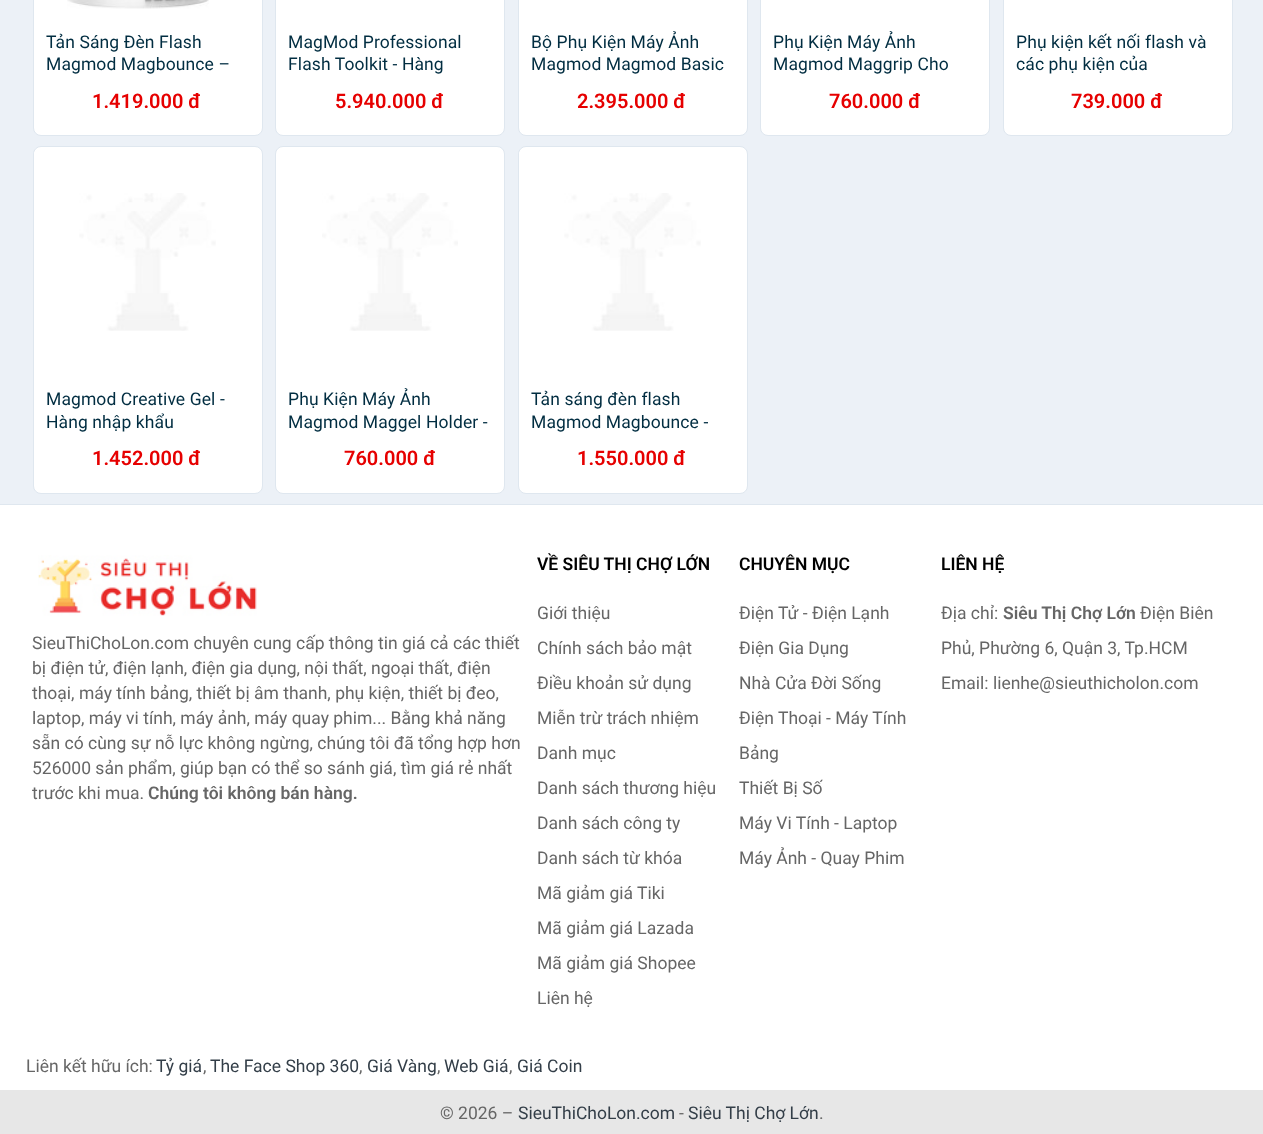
<!DOCTYPE html>
<meta charset="utf-8">
<style>body { margin: 0 } canvas { display: block }</style>
<canvas id="canvas" width="1263" height="1134"></canvas>
<script type="module">
  const canvas = document.getElementById("canvas");
  const g = canvas.getContext("2d");
  g.miterLimit = 4;
  g.fontKerning = "normal";
  function drawText(s, x, y, [font, color]) {
    g.font = font;
    g.fillStyle = color;
    g.fillText(s, x, y);
  }
  function fillBox(x, y, w, h, color) {
    g.fillStyle = color;
    g.fillRect(x, y, w, h);
  }
  async function drawPicture(src, x, y, w, h) {
    const img = new Image();
    img.src = src;
    await img.decode();
    g.drawImage(img, x, y, w, h);
  }

  const s1 = ["17.5px Roboto", "#012D41"];
  const s2 = ["600 20px Roboto", "#E60000"];
  const s3 = ["17.5px Roboto", "#666666"];
  const s4 = ["600 17.5px Roboto", "#666666"];
  const s5 = ["600 17.5px Roboto", "#000000"];
  const s6 = ["17.5px Roboto", "#333E48"];

  fillBox(0, 0, 1263, 1134, "#FFFFFF");
  fillBox(0, 0, 1263, 504, "#ECF1F7");
  g.fillStyle = "#FFFFFF";
  g.beginPath();
  g.roundRect(33.5, -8.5, 229, 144, 7.5);
  g.fill();
  g.strokeStyle = "#DFE7EF";
  g.stroke();
  await drawPicture("pic1.png", 67, 0, 142, 9);
  g.letterSpacing = "0.1px";
  drawText("Tản Sáng Đèn Flash", 46, 48, s1);
  drawText("Magmod Magbounce –", 46, 70, s1);
  g.letterSpacing = "0px";
  drawText("1.419.000 đ", 92, 108, s2);
  g.fillStyle = "#FFFFFF";
  g.beginPath();
  g.roundRect(275.5, -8.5, 229, 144, 7.5);
  g.fill();
  g.stroke();
  g.letterSpacing = "0.1px";
  drawText("MagMod Professional", 288, 48, s1);
  drawText("Flash Toolkit - Hàng", 288, 70, s1);
  g.letterSpacing = "0px";
  drawText("5.940.000 đ", 335, 108, s2);
  g.fillStyle = "#FFFFFF";
  g.beginPath();
  g.roundRect(518.5, -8.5, 229, 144, 7.5);
  g.fill();
  g.stroke();
  g.letterSpacing = "0.1px";
  drawText("Bộ Phụ Kiện Máy Ảnh", 531, 48, s1);
  drawText("Magmod Magmod Basic", 531, 70, s1);
  g.letterSpacing = "0px";
  drawText("2.395.000 đ", 577, 108, s2);
  g.fillStyle = "#FFFFFF";
  g.beginPath();
  g.roundRect(760.5, -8.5, 229, 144, 7.5);
  g.fill();
  g.stroke();
  g.letterSpacing = "0.1px";
  drawText("Phụ Kiện Máy Ảnh", 773, 48, s1);
  drawText("Magmod Maggrip Cho", 773, 70, s1);
  g.letterSpacing = "0px";
  drawText("760.000 đ", 829, 108, s2);
  g.fillStyle = "#FFFFFF";
  g.beginPath();
  g.roundRect(1003.5, -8.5, 229, 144, 7.5);
  g.fill();
  g.stroke();
  g.letterSpacing = "0.1px";
  drawText("Phụ kiện kết nối flash và", 1016, 48, s1);
  drawText("các phụ kiện của", 1016, 70, s1);
  g.letterSpacing = "0px";
  drawText("739.000 đ", 1071, 108, s2);
  g.fillStyle = "#FFFFFF";
  g.beginPath();
  g.roundRect(33.5, 146.5, 229, 347, 7.5);
  g.fill();
  g.stroke();
  await drawPicture("pic2.png", 34, 152, 182, 179);
  g.letterSpacing = "0.1px";
  drawText("Magmod Creative Gel -", 46, 405, s1);
  drawText("Hàng nhập khẩu", 46, 428, s1);
  g.letterSpacing = "0px";
  drawText("1.452.000 đ", 92, 465, s2);
  g.fillStyle = "#FFFFFF";
  g.beginPath();
  g.roundRect(275.5, 146.5, 229, 347, 7.5);
  g.fill();
  g.stroke();
  await drawPicture("pic3.png", 322, 193, 136, 138);
  g.letterSpacing = "0.1px";
  drawText("Phụ Kiện Máy Ảnh", 288, 405, s1);
  drawText("Magmod Maggel Holder -", 288, 428, s1);
  g.letterSpacing = "0px";
  drawText("760.000 đ", 344, 465, s2);
  g.fillStyle = "#FFFFFF";
  g.beginPath();
  g.roundRect(518.5, 146.5, 229, 347, 7.5);
  g.fill();
  g.stroke();
  await drawPicture("pic2.png", 519, 152, 182, 179);
  g.letterSpacing = "0.1px";
  drawText("Tản sáng đèn flash", 531, 405, s1);
  drawText("Magmod Magbounce -", 531, 428, s1);
  g.letterSpacing = "0px";
  drawText("1.550.000 đ", 577, 465, s2);
  fillBox(0, 504, 1263, 1, "#DFE7EF");
  await drawPicture("pic4.png", 38, 555, 219, 61);
  drawText("SieuThiChoLon.com chuyên cung cấp thông tin giá cả các thiết", 32, 649, s3);
  drawText("bị điện tử, điện lạnh, điện gia dụng, nội thất, ngoại thất, điện", 32, 674, s3);
  drawText("thoại, máy tính bảng, thiết bị âm thanh, phụ kiện, thiết bị đeo,", 32, 699, s3);
  drawText("laptop, máy vi tính, máy ảnh, máy quay phim... Bằng khả năng", 32, 724, s3);
  drawText("sẵn có cùng sự nỗ lực không ngừng, chúng tôi đã tổng hợp hơn", 32, 749, s3);
  drawText("526000 sản phẩm, giúp bạn có thể so sánh giá, tìm giá rẻ nhất", 32, 774, s3);
  drawText("trước khi mua.", 32, 799, s3);
  drawText("Chúng tôi không bán hàng.", 148, 799, s4);
  drawText("VỀ SIÊU THỊ CHỢ LỚN", 537, 570, s5);
  drawText("Giới thiệu", 537, 619, s3);
  drawText("Chính sách bảo mật", 537, 654, s3);
  drawText("Điều khoản sử dụng", 537, 689, s3);
  drawText("Miễn trừ trách nhiệm", 537, 724, s3);
  drawText("Danh mục", 537, 759, s3);
  drawText("Danh sách thương hiệu", 537, 794, s3);
  drawText("Danh sách công ty", 537, 829, s3);
  drawText("Danh sách từ khóa", 537, 864, s3);
  drawText("Mã giảm giá Tiki", 537, 899, s3);
  drawText("Mã giảm giá Lazada", 537, 934, s3);
  drawText("Mã giảm giá Shopee", 537, 969, s3);
  drawText("Liên hệ", 537, 1004, s3);
  drawText("CHUYÊN MỤC", 739, 570, s5);
  drawText("Điện Tử - Điện Lạnh", 739, 619, s3);
  drawText("Điện Gia Dụng", 739, 654, s3);
  drawText("Nhà Cửa Đời Sống", 739, 689, s3);
  drawText("Điện Thoại - Máy Tính", 739, 724, s3);
  drawText("Bảng", 739, 759, s3);
  drawText("Thiết Bị Số", 739, 794, s3);
  drawText("Máy Vi Tính - Laptop", 739, 829, s3);
  drawText("Máy Ảnh - Quay Phim", 739, 864, s3);
  drawText("LIÊN HỆ", 941, 570, s5);
  drawText("Địa chỉ:", 941, 619, s3);
  drawText("Siêu Thị Chợ Lớn", 1003, 619, s4);
  drawText("Điện Biên", 1140, 619, s3);
  drawText("Phủ, Phường 6, Quận 3, Tp.HCM", 941, 654, s3);
  drawText("Email: lienhe@sieuthicholon.com", 941, 689, s3);
  drawText("Liên kết hữu ích:", 26, 1072, s3);
  drawText("Tỷ giá", 156, 1072, s6);
  drawText(",", 203, 1072, s3);
  drawText("The Face Shop 360", 210, 1072, s6);
  drawText(",", 359, 1072, s3);
  drawText("Giá Vàng", 367, 1072, s6);
  drawText(",", 437, 1072, s3);
  drawText("Web Giá", 444, 1072, s6);
  drawText(",", 509, 1072, s3);
  drawText("Giá Coin", 517, 1072, s6);
  fillBox(0, 1090, 1263, 44, "#E7E7E7");
  drawText("© 2026 –", 440, 1119, s3);
  drawText("SieuThiChoLon.com", 518, 1119, s6);
  drawText("-", 679, 1119, s3);
  drawText("Siêu Thị Chợ Lớn", 688, 1119, s6);
  drawText(".", 819, 1119, s3);
</script>
